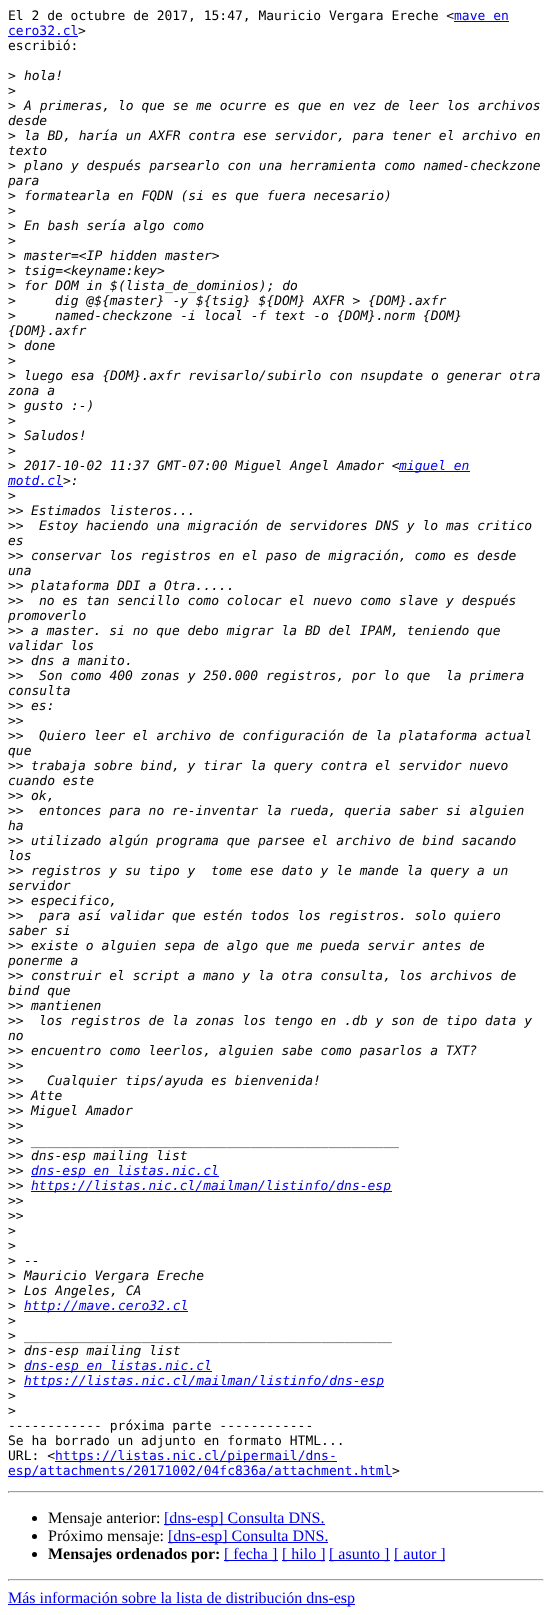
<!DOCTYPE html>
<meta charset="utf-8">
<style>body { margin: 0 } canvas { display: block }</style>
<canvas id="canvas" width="552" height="1615"></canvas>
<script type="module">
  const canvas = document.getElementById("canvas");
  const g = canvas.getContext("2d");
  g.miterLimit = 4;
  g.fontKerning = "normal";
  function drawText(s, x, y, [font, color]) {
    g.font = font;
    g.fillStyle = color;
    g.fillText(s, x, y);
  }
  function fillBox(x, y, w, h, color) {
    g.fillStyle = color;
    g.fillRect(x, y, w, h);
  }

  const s1 = ["13px DejaVu Sans Mono", "#000000"];
  const s2 = ["13px DejaVu Sans Mono", "#0000EE"];
  const s3 = ["italic 13px DejaVu Sans Mono", "#000000"];
  const s4 = ["italic 13px DejaVu Sans Mono", "#0000EE"];
  const s5 = ["16px Liberation Serif", "#000000"];
  const s6 = ["16px Liberation Serif", "#0000EE"];
  const s7 = ["bold 16px Liberation Serif", "#000000"];

  fillBox(0, 0, 552, 1615, "#FFFFFF");
  drawText("El 2 de octubre de 2017, 15:47, Mauricio Vergara Ereche <", 8, 20, s1);
  drawText("mave en", 454, 20, s2);
  fillBox(454, 21, 55, 1, "#0000EE");
  drawText("cero32.cl", 8, 35, s2);
  fillBox(8, 36, 70, 1, "#0000EE");
  drawText(">", 78, 35, s1);
  drawText("escribió:", 8, 50, s1);
  drawText(">", 8, 80, s1);
  drawText("hola!", 24, 80, s3);
  drawText(">", 8, 95, s1);
  drawText(">", 8, 110, s1);
  drawText("A primeras, lo que se me ocurre es que en vez de leer los archivos", 24, 110, s3);
  drawText("desde", 8, 125, s3);
  drawText(">", 8, 140, s1);
  drawText("la BD, haría un AXFR contra ese servidor, para tener el archivo en", 24, 140, s3);
  drawText("texto", 8, 155, s3);
  drawText(">", 8, 170, s1);
  drawText("plano y después parsearlo con una herramienta como named-checkzone", 24, 170, s3);
  drawText("para", 8, 185, s3);
  drawText(">", 8, 200, s1);
  drawText("formatearla en FQDN (si es que fuera necesario)", 24, 200, s3);
  drawText(">", 8, 215, s1);
  drawText(">", 8, 230, s1);
  drawText("En bash sería algo como", 24, 230, s3);
  drawText(">", 8, 245, s1);
  drawText(">", 8, 260, s1);
  drawText("master=<IP hidden master>", 24, 260, s3);
  drawText(">", 8, 275, s1);
  drawText("tsig=<keyname:key>", 24, 275, s3);
  drawText(">", 8, 290, s1);
  drawText("for DOM in $(lista_de_dominios); do", 24, 290, s3);
  drawText(">", 8, 305, s1);
  drawText("dig @${master} -y ${tsig} ${DOM} AXFR > {DOM}.axfr", 55, 305, s3);
  drawText(">", 8, 320, s1);
  drawText("named-checkzone -i local -f text -o {DOM}.norm {DOM}", 55, 320, s3);
  drawText("{DOM}.axfr", 8, 335, s3);
  drawText(">", 8, 350, s1);
  drawText("done", 24, 350, s3);
  drawText(">", 8, 365, s1);
  drawText(">", 8, 380, s1);
  drawText("luego esa {DOM}.axfr revisarlo/subirlo con nsupdate o generar otra", 24, 380, s3);
  drawText("zona a", 8, 395, s3);
  drawText(">", 8, 410, s1);
  drawText("gusto :-)", 24, 410, s3);
  drawText(">", 8, 425, s1);
  drawText(">", 8, 440, s1);
  drawText("Saludos!", 24, 440, s3);
  drawText(">", 8, 455, s1);
  drawText(">", 8, 470, s1);
  drawText("2017-10-02 11:37 GMT-07:00 Miguel Angel Amador <", 24, 470, s3);
  fillBox(399, 471, 71, 1, "#0000EE");
  drawText("miguel en", 399, 470, s4);
  drawText("motd.cl", 8, 485, s4);
  drawText(">:", 63, 485, s3);
  fillBox(8, 486, 55, 1, "#0000EE");
  drawText(">", 8, 500, s1);
  drawText(">>", 8, 515, s1);
  drawText("Estimados listeros...", 31, 515, s3);
  drawText(">>", 8, 530, s1);
  drawText("Estoy haciendo una migración de servidores DNS y lo mas critico", 39, 530, s3);
  drawText("es", 8, 545, s3);
  drawText(">>", 8, 560, s1);
  drawText("conservar los registros en el paso de migración, como es desde", 31, 560, s3);
  drawText("una", 8, 575, s3);
  drawText(">>", 8, 590, s1);
  drawText("plataforma DDI a Otra.....", 31, 590, s3);
  drawText(">>", 8, 605, s1);
  drawText("no es tan sencillo como colocar el nuevo como slave y después", 39, 605, s3);
  drawText("promoverlo", 8, 620, s3);
  drawText(">>", 8, 635, s1);
  drawText("a master. si no que debo migrar la BD del IPAM, teniendo que", 31, 635, s3);
  drawText("validar los", 8, 650, s3);
  drawText(">>", 8, 665, s1);
  drawText("dns a manito.", 31, 665, s3);
  drawText(">>", 8, 680, s1);
  drawText("Son como 400 zonas y 250.000 registros, por lo que  la primera", 39, 680, s3);
  drawText("consulta", 8, 695, s3);
  drawText(">>", 8, 710, s1);
  drawText("es:", 31, 710, s3);
  drawText(">>", 8, 725, s1);
  drawText(">>", 8, 740, s1);
  drawText("Quiero leer el archivo de configuración de la plataforma actual", 39, 740, s3);
  drawText("que", 8, 755, s3);
  drawText(">>", 8, 770, s1);
  drawText("trabaja sobre bind, y tirar la query contra el servidor nuevo", 31, 770, s3);
  drawText("cuando este", 8, 785, s3);
  drawText(">>", 8, 800, s1);
  drawText("ok,", 31, 800, s3);
  drawText(">>", 8, 815, s1);
  drawText("entonces para no re-inventar la rueda, queria saber si alguien", 39, 815, s3);
  drawText("ha", 8, 830, s3);
  drawText(">>", 8, 845, s1);
  drawText("utilizado algún programa que parsee el archivo de bind sacando", 31, 845, s3);
  drawText("los", 8, 860, s3);
  drawText(">>", 8, 875, s1);
  drawText("registros y su tipo y  tome ese dato y le mande la query a un", 31, 875, s3);
  drawText("servidor", 8, 890, s3);
  drawText(">>", 8, 905, s1);
  drawText("especifico,", 31, 905, s3);
  drawText(">>", 8, 920, s1);
  drawText("para así validar que estén todos los registros. solo quiero", 39, 920, s3);
  drawText("saber si", 8, 935, s3);
  drawText(">>", 8, 950, s1);
  drawText("existe o alguien sepa de algo que me pueda servir antes de", 31, 950, s3);
  drawText("ponerme a", 8, 965, s3);
  drawText(">>", 8, 980, s1);
  drawText("construir el script a mano y la otra consulta, los archivos de", 31, 980, s3);
  drawText("bind que", 8, 995, s3);
  drawText(">>", 8, 1010, s1);
  drawText("mantienen", 31, 1010, s3);
  drawText(">>", 8, 1025, s1);
  drawText("los registros de la zonas los tengo en .db y son de tipo data y", 39, 1025, s3);
  drawText("no", 8, 1040, s3);
  drawText(">>", 8, 1055, s1);
  drawText("encuentro como leerlos, alguien sabe como pasarlos a TXT?", 31, 1055, s3);
  drawText(">>", 8, 1070, s1);
  drawText(">>", 8, 1085, s1);
  drawText("Cualquier tips/ayuda es bienvenida!", 47, 1085, s3);
  drawText(">>", 8, 1100, s1);
  drawText("Atte", 31, 1100, s3);
  drawText(">>", 8, 1115, s1);
  drawText("Miguel Amador", 31, 1115, s3);
  drawText(">>", 8, 1130, s1);
  drawText(">>", 8, 1145, s1);
  drawText("_______________________________________________", 31, 1145, s3);
  drawText(">>", 8, 1160, s1);
  drawText("dns-esp mailing list", 31, 1160, s3);
  drawText(">>", 8, 1175, s1);
  fillBox(31, 1176, 188, 1, "#0000EE");
  drawText("dns-esp en listas.nic.cl", 31, 1175, s4);
  drawText(">>", 8, 1190, s1);
  fillBox(31, 1191, 361, 1, "#0000EE");
  drawText("https://listas.nic.cl/mailman/listinfo/dns-esp", 31, 1190, s4);
  drawText(">>", 8, 1205, s1);
  drawText(">>", 8, 1220, s1);
  drawText(">", 8, 1235, s1);
  drawText(">", 8, 1250, s1);
  drawText(">", 8, 1265, s1);
  drawText("--", 24, 1265, s3);
  drawText(">", 8, 1280, s1);
  drawText("Mauricio Vergara Ereche", 24, 1280, s3);
  drawText(">", 8, 1295, s1);
  drawText("Los Angeles, CA", 24, 1295, s3);
  drawText(">", 8, 1310, s1);
  fillBox(24, 1311, 164, 1, "#0000EE");
  drawText("http://mave.cero32.cl", 24, 1310, s4);
  drawText(">", 8, 1325, s1);
  drawText(">", 8, 1340, s1);
  drawText("_______________________________________________", 24, 1340, s3);
  drawText(">", 8, 1355, s1);
  drawText("dns-esp mailing list", 24, 1355, s3);
  drawText(">", 8, 1370, s1);
  fillBox(24, 1371, 188, 1, "#0000EE");
  drawText("dns-esp en listas.nic.cl", 24, 1370, s4);
  drawText(">", 8, 1385, s1);
  fillBox(24, 1386, 360, 1, "#0000EE");
  drawText("https://listas.nic.cl/mailman/listinfo/dns-esp", 24, 1385, s4);
  drawText(">", 8, 1400, s1);
  drawText(">", 8, 1415, s1);
  drawText("------------ próxima parte ------------", 8, 1430, s1);
  drawText("Se ha borrado un adjunto en formato HTML...", 8, 1445, s1);
  drawText("URL: <", 8, 1460, s1);
  fillBox(55, 1461, 282, 1, "#0000EE");
  drawText("https://listas.nic.cl/pipermail/dns-", 55, 1460, s2);
  fillBox(8, 1476, 384, 1, "#0000EE");
  drawText("esp/attachments/20171002/04fc836a/attachment.html", 8, 1475, s2);
  drawText(">", 392, 1475, s1);
  fillBox(8, 1491, 536, 1, "#9F9F9F");
  fillBox(543, 1491, 1, 2, "#EEEEEE");
  fillBox(8, 1492, 536, 1, "#EEEEEE");
  fillBox(8, 1491, 1, 2, "#9F9F9F");
  g.fillStyle = "#000000";
  g.beginPath();
  g.arc(34.5, 1518.5, 2.5, 0, Math.PI * 2);
  g.fill();
  drawText("Mensaje anterior:", 48, 1523, s5);
  fillBox(164, 1524, 161, 1, "#0000EE");
  drawText("[dns-esp] Consulta DNS.", 164, 1523, s6);
  g.fillStyle = "#000000";
  g.beginPath();
  g.arc(34.5, 1536.5, 2.5, 0, Math.PI * 2);
  g.fill();
  drawText("Próximo mensaje:", 48, 1541, s5);
  fillBox(168, 1542, 160, 1, "#0000EE");
  drawText("[dns-esp] Consulta DNS.", 168, 1541, s6);
  g.fillStyle = "#000000";
  g.beginPath();
  g.arc(34.5, 1554.5, 2.5, 0, Math.PI * 2);
  g.fill();
  drawText("Mensajes ordenados por:", 48, 1559, s7);
  fillBox(224, 1560, 54, 1, "#0000EE");
  drawText("[ fecha ]", 224, 1559, s6);
  fillBox(282, 1560, 43, 1, "#0000EE");
  drawText("[ hilo ]", 282, 1559, s6);
  fillBox(329, 1560, 61, 1, "#0000EE");
  drawText("[ asunto ]", 329, 1559, s6);
  fillBox(394, 1560, 51, 1, "#0000EE");
  drawText("[ autor ]", 394, 1559, s6);
  fillBox(8, 1579, 536, 1, "#9F9F9F");
  fillBox(543, 1579, 1, 2, "#EEEEEE");
  fillBox(8, 1580, 536, 1, "#EEEEEE");
  fillBox(8, 1579, 1, 2, "#9F9F9F");
  fillBox(8, 1604, 347, 1, "#0000EE");
  drawText("Más información sobre la lista de distribución dns-esp", 8, 1603, s6);
</script>
